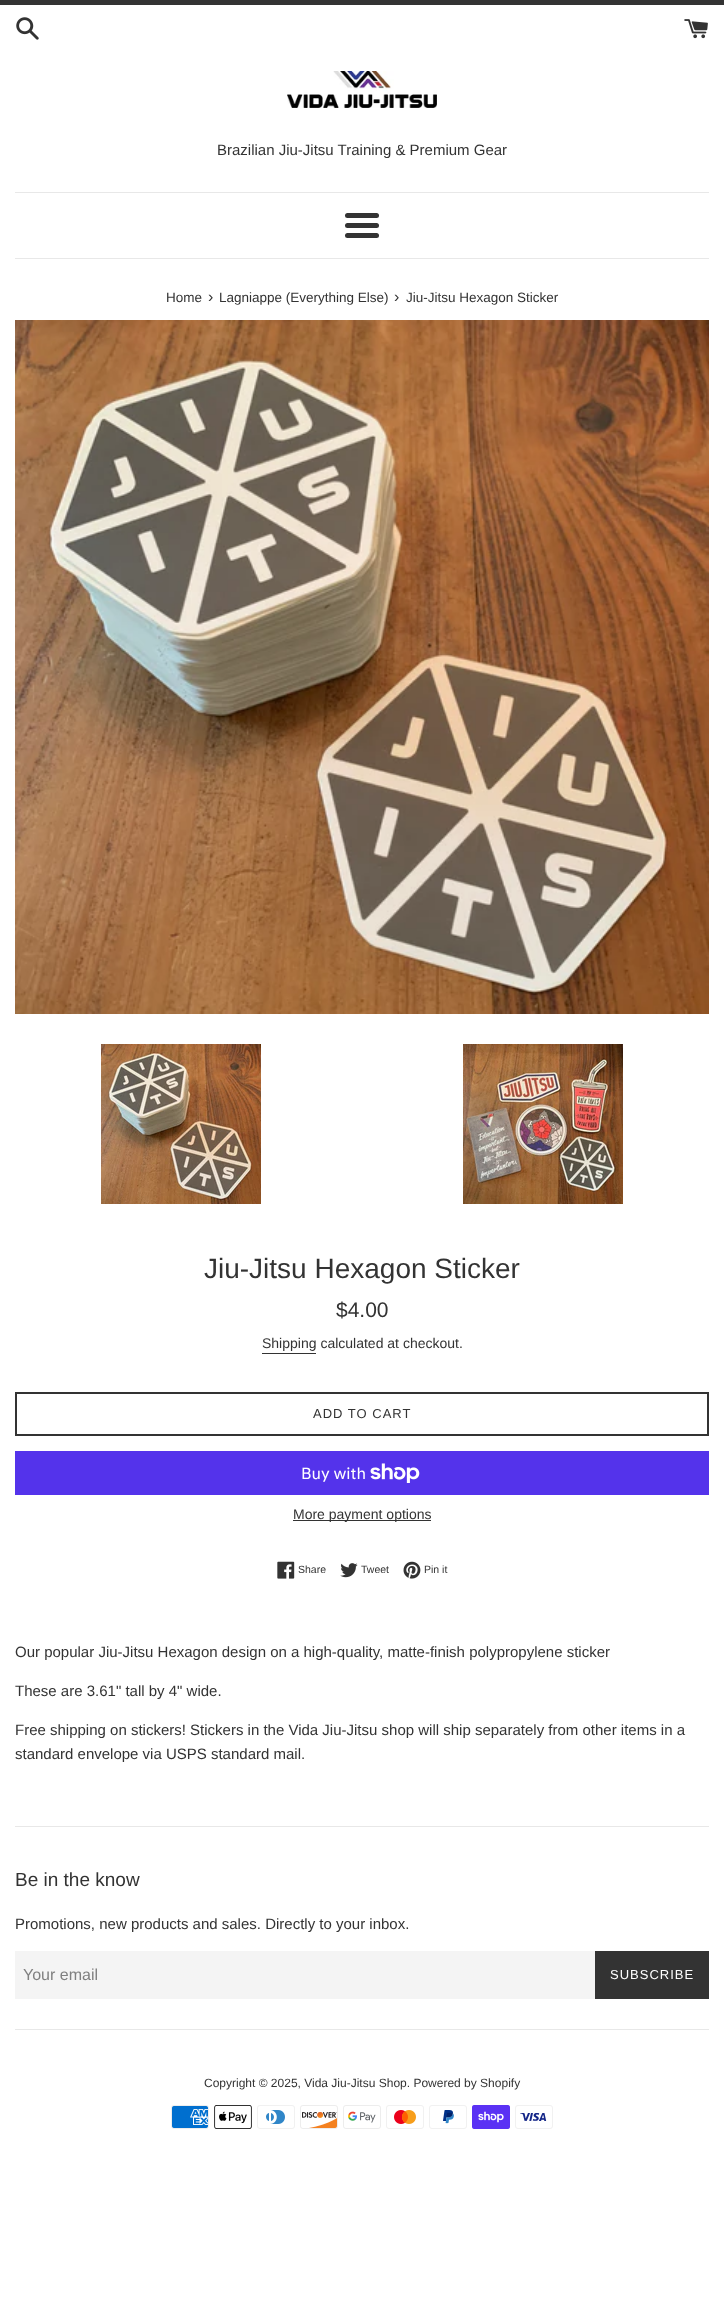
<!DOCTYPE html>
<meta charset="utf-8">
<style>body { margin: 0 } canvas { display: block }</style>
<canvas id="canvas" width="724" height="2316"></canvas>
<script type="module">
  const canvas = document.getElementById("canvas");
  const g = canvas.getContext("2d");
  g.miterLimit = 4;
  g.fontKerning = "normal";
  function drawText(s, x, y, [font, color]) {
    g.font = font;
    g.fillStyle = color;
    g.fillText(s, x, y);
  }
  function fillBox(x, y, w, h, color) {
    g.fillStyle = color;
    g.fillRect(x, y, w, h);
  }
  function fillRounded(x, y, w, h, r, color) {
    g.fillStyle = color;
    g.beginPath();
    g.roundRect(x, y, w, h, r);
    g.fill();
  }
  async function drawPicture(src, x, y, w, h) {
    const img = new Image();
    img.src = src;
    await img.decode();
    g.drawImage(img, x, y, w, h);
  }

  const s1 = ["15px Liberation Sans", "#333333"];
  const s2 = ["13.5px Liberation Sans", "#333333"];
  const s3 = ["16px Liberation Sans", "#333333"];
  const s4 = ["28px Liberation Sans", "#333333"];
  const s5 = ["21px Liberation Sans", "#333333"];
  const s6 = ["14px Liberation Sans", "#333333"];
  const s7 = ["13px Liberation Sans", "#333333"];
  const s8 = ["16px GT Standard", "#FFFFFF"];
  const s9 = ["10.5px Liberation Sans", "#333333"];
  const s10 = ["19px Liberation Sans", "#333333"];
  const s11 = ["16px Liberation Sans", "#808080"];
  const s12 = ["13px Liberation Sans", "#FFFFFF"];
  const s13 = ["12px Liberation Sans", "#333333"];

  fillBox(0, 0, 724, 2316, "#FFFFFF");
  fillBox(0, 0, 724, 5, "#333333");
  await drawPicture("pic1.png", 16, 17, 23, 23);
  await drawPicture("pic2.png", 684, 19, 24, 20);
  await drawPicture("pic3.png", 287, 71, 150, 37);
  drawText("Brazilian Jiu-Jitsu Training & Premium Gear", 217, 155, s1);
  fillBox(15, 192, 694, 1, "#E8E8E8");
  fillRounded(345, 213, 34, 5, 2.5, "#333333");
  fillRounded(345, 223, 34, 5, 2.5, "#333333");
  fillRounded(345, 233, 34, 5, 2.5, "#333333");
  fillBox(15, 258, 694, 1, "#E8E8E8");
  drawText("Home", 166, 302, s2);
  drawText("›", 208, 302, s3);
  drawText("Lagniappe (Everything Else)", 219, 302, s2);
  drawText("›", 394, 302, s3);
  drawText("Jiu-Jitsu Hexagon Sticker", 406, 302, s2);
  await drawPicture("pic4.png", 15, 320, 694, 694);
  await drawPicture("pic5.png", 101, 1044, 160, 160);
  await drawPicture("pic6.png", 463, 1044, 160, 160);
  drawText("Jiu-Jitsu Hexagon Sticker", 204, 1278, s4);
  drawText("$4.00", 336, 1317, s5);
  drawText("Shipping calculated at checkout.", 262, 1348, s6);
  fillBox(262, 1353, 54, 1, "#333333");
  g.strokeStyle = "#333333";
  g.lineWidth = 2;
  g.strokeRect(16, 1393, 692, 42);
  g.letterSpacing = "1px";
  drawText("ADD TO CART", 313, 1418, s7);
  fillBox(15, 1451, 694, 44, "#5433EB");
  g.letterSpacing = "0px";
  drawText("Buy with", 301, 1479, s8);
  await drawPicture("pic7.png", 370, 1463, 50, 20);
  fillBox(293, 1520, 138, 1, "#333333");
  drawText("More payment options", 293, 1519, s6);
  await drawPicture("pic8.png", 277, 1561, 18, 18);
  drawText("Share", 298, 1573, s9);
  await drawPicture("pic9.png", 340, 1563, 18, 15);
  drawText("Tweet", 361, 1573, s9);
  await drawPicture("pic10.png", 403, 1561, 18, 18);
  drawText("Pin it", 424, 1573, s9);
  drawText("Our popular Jiu-Jitsu Hexagon design on a high-quality, matte-finish polypropylene sticker", 15, 1657, s1);
  drawText("These are 3.61\" tall by 4\" wide.", 15, 1696, s1);
  drawText("Free shipping on stickers! Stickers in the Vida Jiu-Jitsu shop will ship separately from other items in a", 15, 1735, s1);
  drawText("standard envelope via USPS standard mail.", 15, 1759, s1);
  fillBox(15, 1826, 694, 1, "#E8E8E8");
  drawText("Be in the know", 15, 1886, s10);
  drawText("Promotions, new products and sales. Directly to your inbox.", 15, 1929, s1);
  fillBox(15, 1951, 580, 48, "#F4F4F4");
  drawText("Your email", 23, 1980, s11);
  fillBox(595, 1951, 114, 48, "#333333");
  g.letterSpacing = "1px";
  drawText("SUBSCRIBE", 610, 1979, s12);
  fillBox(15, 2029, 694, 1, "#E8E8E8");
  g.letterSpacing = "0px";
  drawText("Copyright © 2025, Vida Jiu-Jitsu Shop. Powered by Shopify", 204, 2087, s13);
  await drawPicture("pic11.png", 171, 2105, 38, 24);
  await drawPicture("pic12.png", 214, 2105, 38, 24);
  await drawPicture("pic13.png", 257, 2105, 38, 24);
  await drawPicture("pic14.png", 300, 2105, 38, 24);
  await drawPicture("pic15.png", 343, 2105, 38, 24);
  await drawPicture("pic16.png", 386, 2105, 38, 24);
  await drawPicture("pic17.png", 429, 2105, 38, 24);
  await drawPicture("pic18.png", 472, 2105, 38, 24);
  await drawPicture("pic19.png", 515, 2105, 38, 24);
</script>
